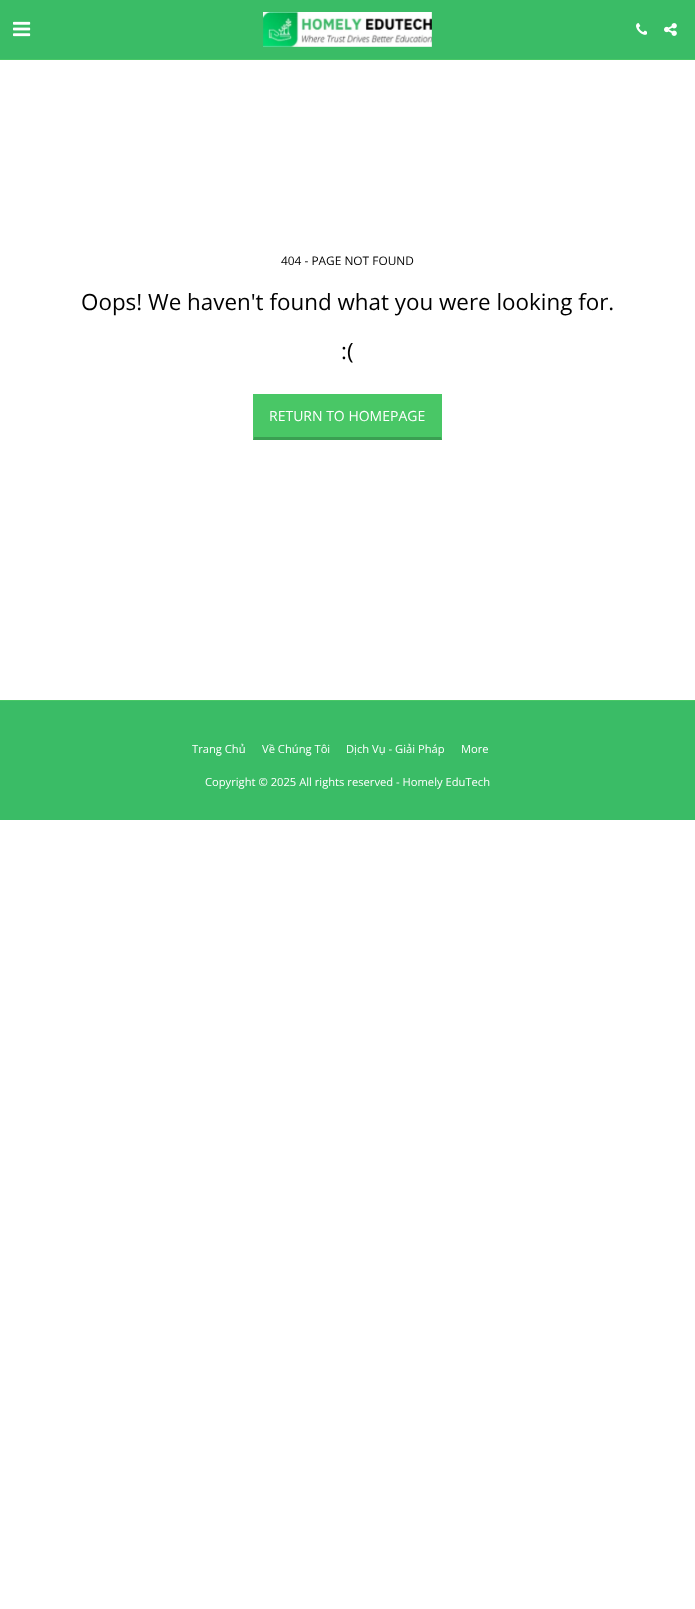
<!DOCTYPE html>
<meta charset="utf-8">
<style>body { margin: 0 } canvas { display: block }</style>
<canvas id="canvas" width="695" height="1609"></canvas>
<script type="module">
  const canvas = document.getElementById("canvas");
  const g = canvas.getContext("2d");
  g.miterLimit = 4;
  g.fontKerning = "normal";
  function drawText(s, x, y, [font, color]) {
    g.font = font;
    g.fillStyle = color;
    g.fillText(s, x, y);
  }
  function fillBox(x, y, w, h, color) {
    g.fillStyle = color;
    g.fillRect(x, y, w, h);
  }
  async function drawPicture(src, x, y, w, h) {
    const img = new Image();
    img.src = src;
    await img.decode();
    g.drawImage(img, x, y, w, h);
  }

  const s1 = ["11.9px Open Sans", "#000000"];
  const s2 = ["22.4px Open Sans", "#000000"];
  const s3 = ["14px Open Sans", "#FFFFFF"];
  const s4 = ["11.2px Open Sans", "#FFFFFF"];

  fillBox(0, 0, 695, 1609, "#FFFFFF");
  fillBox(0, 0, 695, 59, "#3ABC66");
  fillBox(0, 59, 695, 1, "#49C766");
  await drawPicture("pic1.png", 13, 21, 18, 16);
  await drawPicture("pic2.png", 263, 12, 169, 35);
  await drawPicture("pic3.png", 636, 23, 11, 12);
  await drawPicture("pic4.png", 664, 23, 13, 13);
  drawText("404 - PAGE NOT FOUND", 281, 265, s1);
  drawText("Oops! We haven't found what you were looking for.", 81, 310, s2);
  drawText(":(", 341, 359, s2);
  fillBox(253, 394, 189, 46, "#49C766");
  g.fillStyle = "#3A9F52";
  g.beginPath();
  g.moveTo(442, 440);
  g.lineTo(253, 440);
  g.lineTo(254, 437);
  g.lineTo(441, 437);
  g.closePath();
  g.fill();
  g.fillStyle = "#49C766";
  g.beginPath();
  g.moveTo(253, 440);
  g.lineTo(253, 394);
  g.lineTo(254, 395);
  g.lineTo(254, 437);
  g.closePath();
  g.fill();
  drawText("RETURN TO HOMEPAGE", 269, 421, s3);
  fillBox(0, 700, 695, 1, "#49C766");
  fillBox(0, 701, 695, 119, "#3ABC66");
  drawText("Trang Chủ", 192, 753, s4);
  drawText("Về Chúng Tôi", 262, 753, s4);
  drawText("Dịch Vụ - Giải Pháp", 346, 753, s4);
  drawText("More", 461, 753, s4);
  drawText("Copyright © 2025 All rights reserved - Homely EduTech", 205, 786, s4);
</script>
